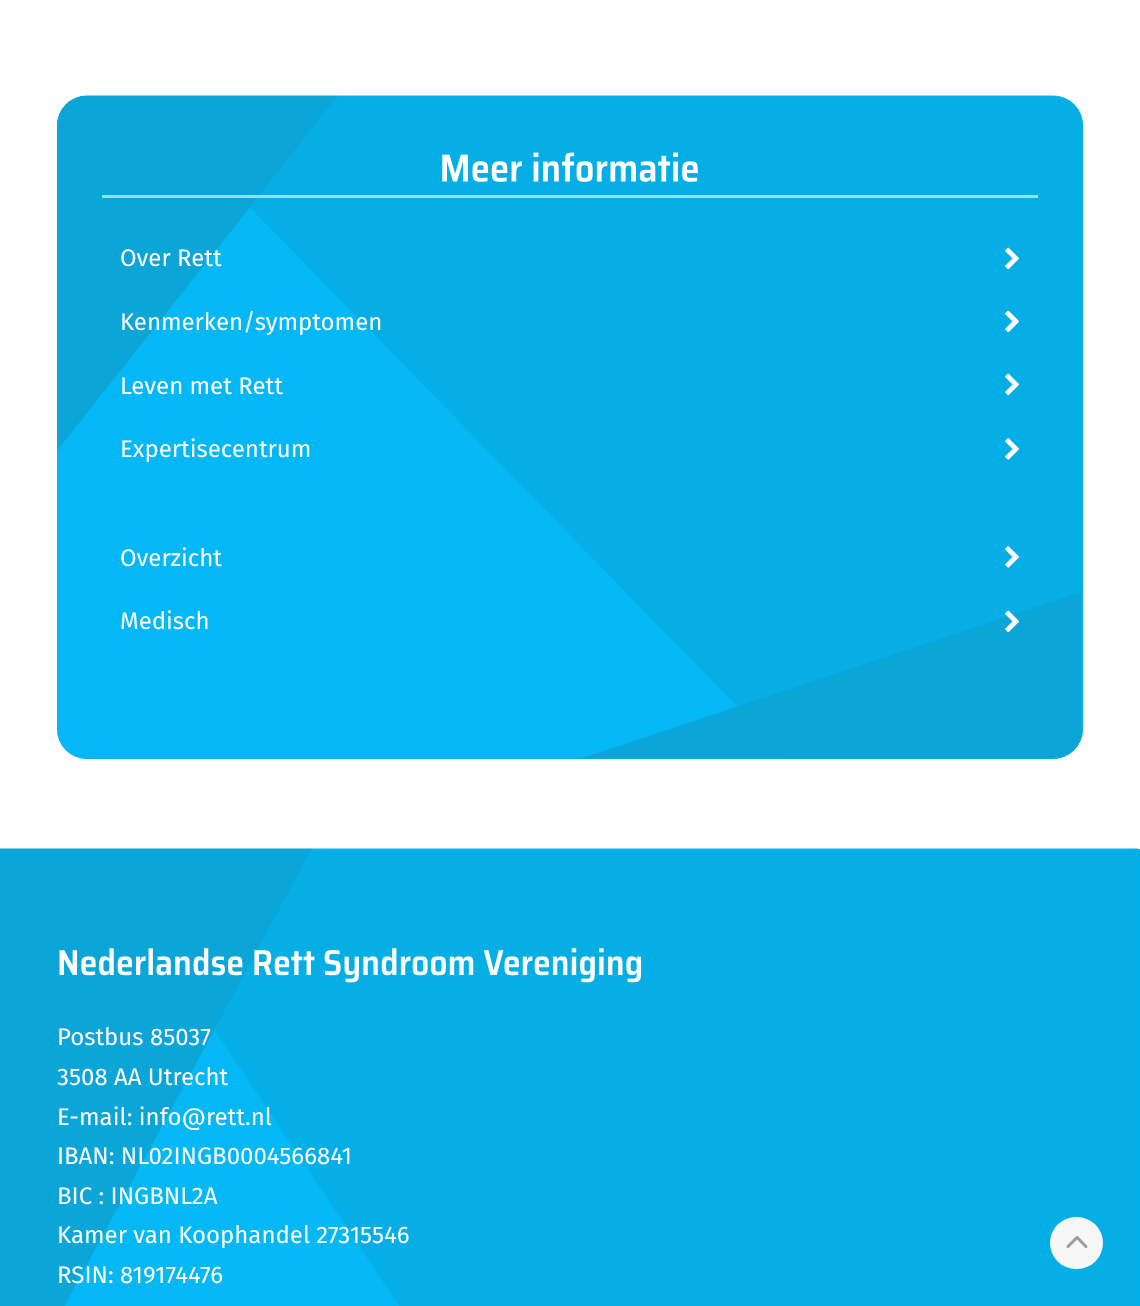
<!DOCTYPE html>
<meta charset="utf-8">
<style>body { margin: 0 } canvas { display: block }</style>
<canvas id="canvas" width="1140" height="1306"></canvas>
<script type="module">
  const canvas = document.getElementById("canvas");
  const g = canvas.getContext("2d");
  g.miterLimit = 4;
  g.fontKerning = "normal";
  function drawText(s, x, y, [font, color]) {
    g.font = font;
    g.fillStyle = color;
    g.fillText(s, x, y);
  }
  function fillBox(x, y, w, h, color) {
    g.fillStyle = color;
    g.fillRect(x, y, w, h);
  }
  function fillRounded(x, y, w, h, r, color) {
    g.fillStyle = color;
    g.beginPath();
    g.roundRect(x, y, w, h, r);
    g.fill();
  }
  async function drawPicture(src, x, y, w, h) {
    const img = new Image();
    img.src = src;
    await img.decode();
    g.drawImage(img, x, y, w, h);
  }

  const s1 = ["24px Fira Sans", "#FFFFFF"];

  fillBox(0, 0, 1140, 1306, "#FFFFFF");
  fillRounded(57, 96, 1026, 663, 30, "#00ADE5");
  await drawPicture("pic1.png", 56, 95, 1027, 664);
  fillBox(102, 195, 936, 3, "rgba(255, 255, 255, 0.6)");
  await drawPicture("pic2.png", 442, 152, 256, 30);
  drawText("Over Rett", 120, 266, s1);
  await drawPicture("pic3.png", 1005, 247, 14, 23);
  drawText("Kenmerken/symptomen", 120, 330, s1);
  await drawPicture("pic3.png", 1005, 310, 14, 23);
  drawText("Leven met Rett", 120, 394, s1);
  await drawPicture("pic3.png", 1005, 373, 14, 23);
  drawText("Expertisecentrum", 120, 457, s1);
  await drawPicture("pic4.png", 1005, 438, 14, 22);
  drawText("Overzicht", 120, 566, s1);
  await drawPicture("pic4.png", 1005, 546, 14, 22);
  drawText("Medisch", 120, 629, s1);
  await drawPicture("pic5.png", 1005, 610, 14, 23);
  fillBox(1138, 849, 2, 457, "#00ADE5");
  await drawPicture("pic6.png", 0, 848, 1139, 458);
  await drawPicture("pic7.png", 59, 948, 583, 35);
  drawText("Postbus 85037", 57, 1045, s1);
  drawText("3508 AA Utrecht", 57, 1085, s1);
  drawText("E-mail: info@rett.nl", 57, 1125, s1);
  drawText("IBAN: NL02INGB0004566841", 57, 1164, s1);
  drawText("BIC : INGBNL2A", 57, 1204, s1);
  drawText("Kamer van Koophandel 27315546", 57, 1243, s1);
  drawText("RSIN: 819174476", 57, 1283, s1);
  fillRounded(1050, 1217, 53, 52, 26, "#F7F7F7");
  await drawPicture("pic8.png", 1066, 1236, 22, 12);
</script>
